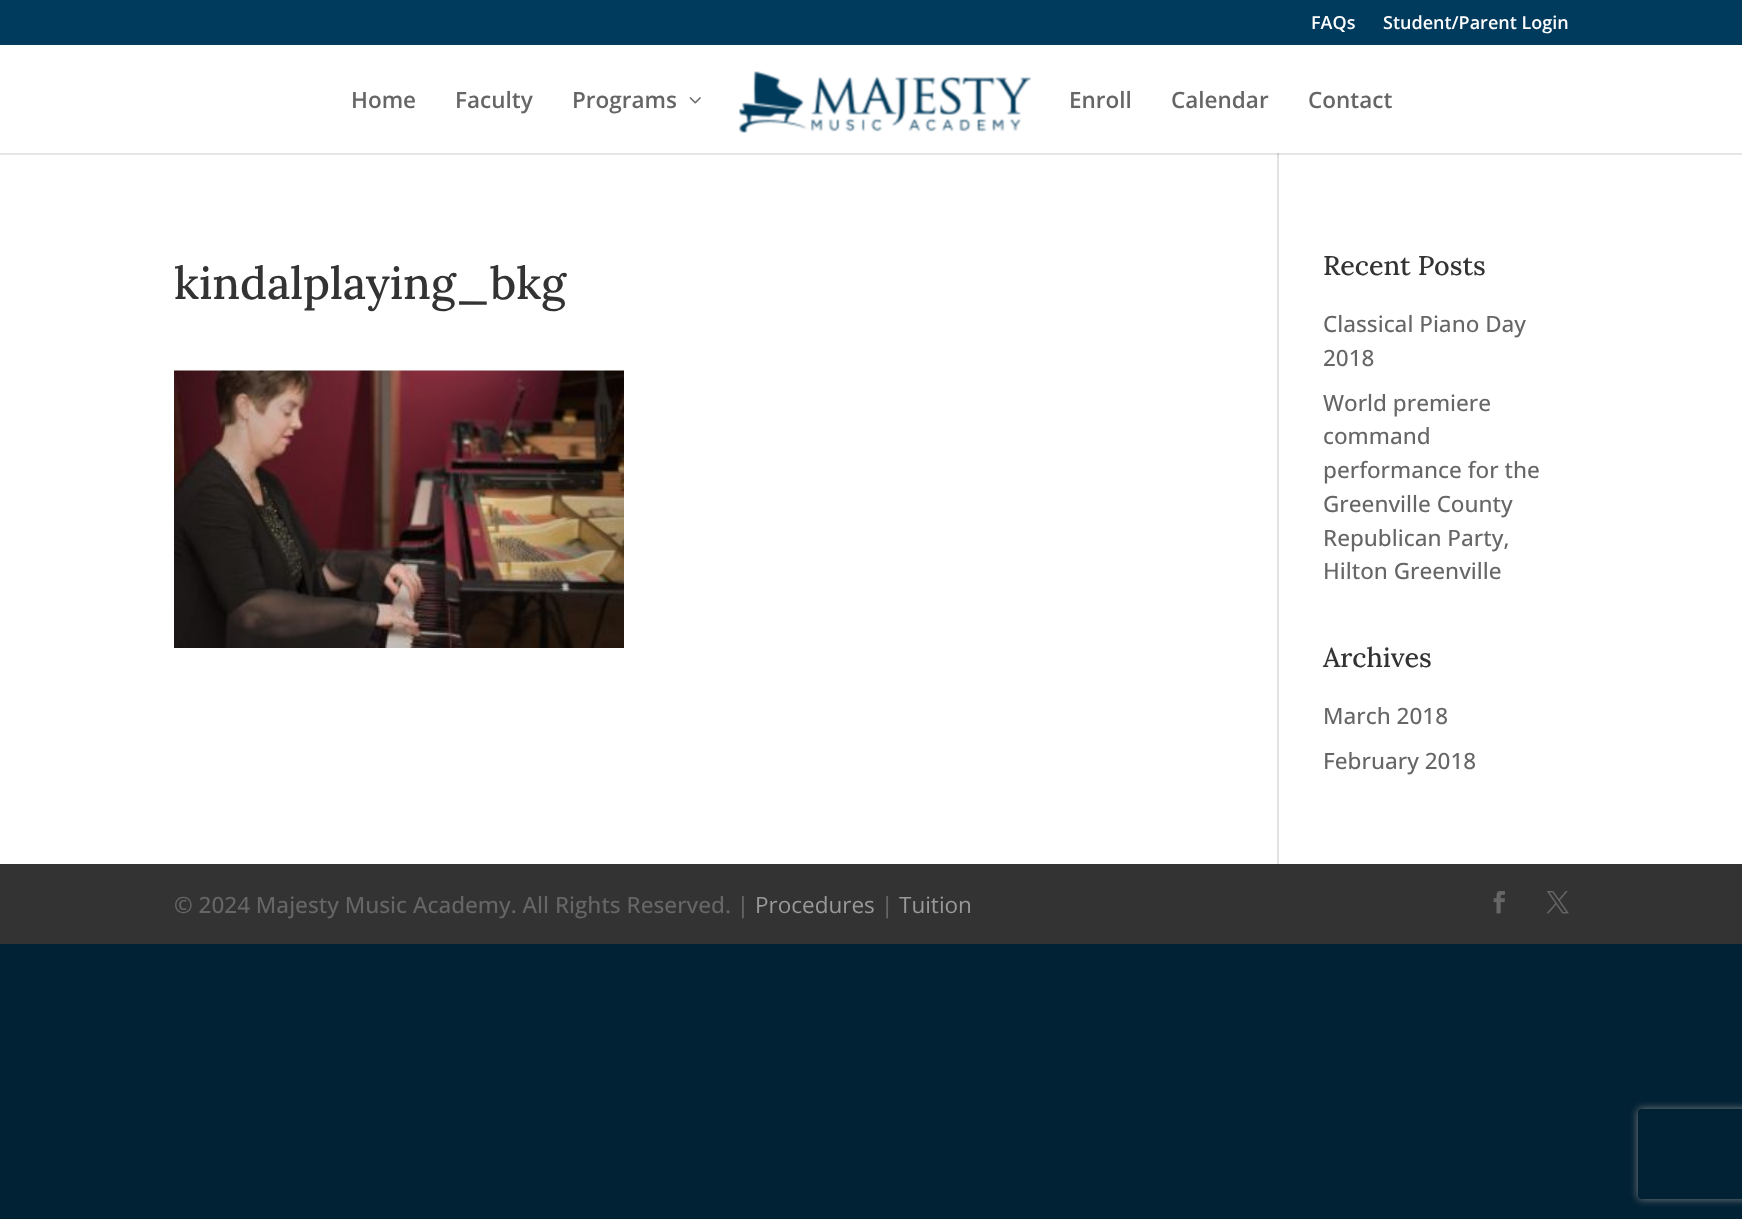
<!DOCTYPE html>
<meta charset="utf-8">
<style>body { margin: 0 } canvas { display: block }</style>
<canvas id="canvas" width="1742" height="1219"></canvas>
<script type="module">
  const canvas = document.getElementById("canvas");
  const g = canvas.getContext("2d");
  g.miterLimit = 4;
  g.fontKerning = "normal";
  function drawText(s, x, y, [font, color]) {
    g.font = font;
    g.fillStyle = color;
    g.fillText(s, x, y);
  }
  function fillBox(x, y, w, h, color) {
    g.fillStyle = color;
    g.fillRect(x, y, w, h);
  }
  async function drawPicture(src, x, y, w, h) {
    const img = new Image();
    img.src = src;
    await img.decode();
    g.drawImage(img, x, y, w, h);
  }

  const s1 = ["600 18px Open Sans", "#FFFFFF"];
  const s2 = ["600 22.5px Open Sans", "#666666"];
  const s3 = ["500 45px Lora", "#333333"];
  const s4 = ["500 27px Lora", "#333333"];
  const s5 = ["500 22.5px Open Sans", "#666666"];
  const s6 = ["22.5px Open Sans", "#999999"];

  fillBox(0, 0, 1742, 1219, "#012134");
  fillBox(0, 0, 1742, 45, "#003A5D");
  drawText("FAQs", 1311, 29, s1);
  drawText("Student/Parent Login", 1383, 29, s1);
  fillBox(0, 45, 1742, 108, "#FFFFFF");
  drawText("Home", 351, 108, s2);
  drawText("Faculty", 455, 108, s2);
  drawText("Programs", 572, 108, s2);
  await drawPicture("pic1.png", 689, 97, 12, 7);
  await drawPicture("pic2.png", 739, 71, 292, 62);
  drawText("Enroll", 1069, 108, s2);
  drawText("Calendar", 1171, 108, s2);
  drawText("Contact", 1308, 108, s2);
  fillBox(0, 155, 1742, 709, "#FFFFFF");
  fillBox(0, 153, 1742, 2, "#E6E6E6");
  fillBox(1277, 153, 2, 711, "#E2E2E2");
  fillBox(1277, 153, 2, 2, "#CBCBCB");
  drawText("kindalplaying_bkg", 174, 299, s3);
  await drawPicture("pic3.png", 174, 370, 450, 278);
  drawText("Recent Posts", 1323, 275, s4);
  drawText("Classical Piano Day", 1323, 332, s5);
  drawText("2018", 1323, 366, s5);
  drawText("World premiere", 1323, 411, s5);
  drawText("command", 1323, 444, s5);
  drawText("performance for the", 1323, 478, s5);
  drawText("Greenville County", 1323, 512, s5);
  drawText("Republican Party,", 1323, 546, s5);
  drawText("Hilton Greenville", 1323, 579, s5);
  drawText("Archives", 1323, 667, s4);
  drawText("March 2018", 1323, 724, s5);
  drawText("February 2018", 1323, 769, s5);
  fillBox(0, 864, 1742, 80, "#333333");
  drawText("© 2024 Majesty Music Academy. All Rights Reserved. |", 174, 913, s5);
  drawText("Procedures", 755, 913, s6);
  drawText("|", 881, 913, s5);
  drawText("Tuition", 899, 913, s6);
  await drawPicture("pic4.png", 1493, 891, 12, 23);
  await drawPicture("pic5.png", 1546, 891, 23, 23);
  g.save();
  g.beginPath();
  g.moveTo(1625, 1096);
  g.lineTo(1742, 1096);
  g.lineTo(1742, 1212);
  g.lineTo(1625, 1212);
  g.closePath();
  g.moveTo(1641, 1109);
  g.lineTo(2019, 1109);
  g.bezierCurveTo(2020.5, 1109, 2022, 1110.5, 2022, 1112);
  g.lineTo(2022, 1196);
  g.bezierCurveTo(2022, 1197.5, 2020.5, 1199, 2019, 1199);
  g.lineTo(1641, 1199);
  g.bezierCurveTo(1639.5, 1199, 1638, 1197.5, 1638, 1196);
  g.lineTo(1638, 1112);
  g.bezierCurveTo(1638, 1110.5, 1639.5, 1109, 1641, 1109);
  g.closePath();
  g.clip("evenodd");
  g.fillStyle = "#808080";
  g.filter = "blur(4px)";
  g.beginPath();
  g.roundRect(1638, 1109, 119, 90, 3);
  g.fill();
  g.filter = "none";
  g.restore();
</script>
